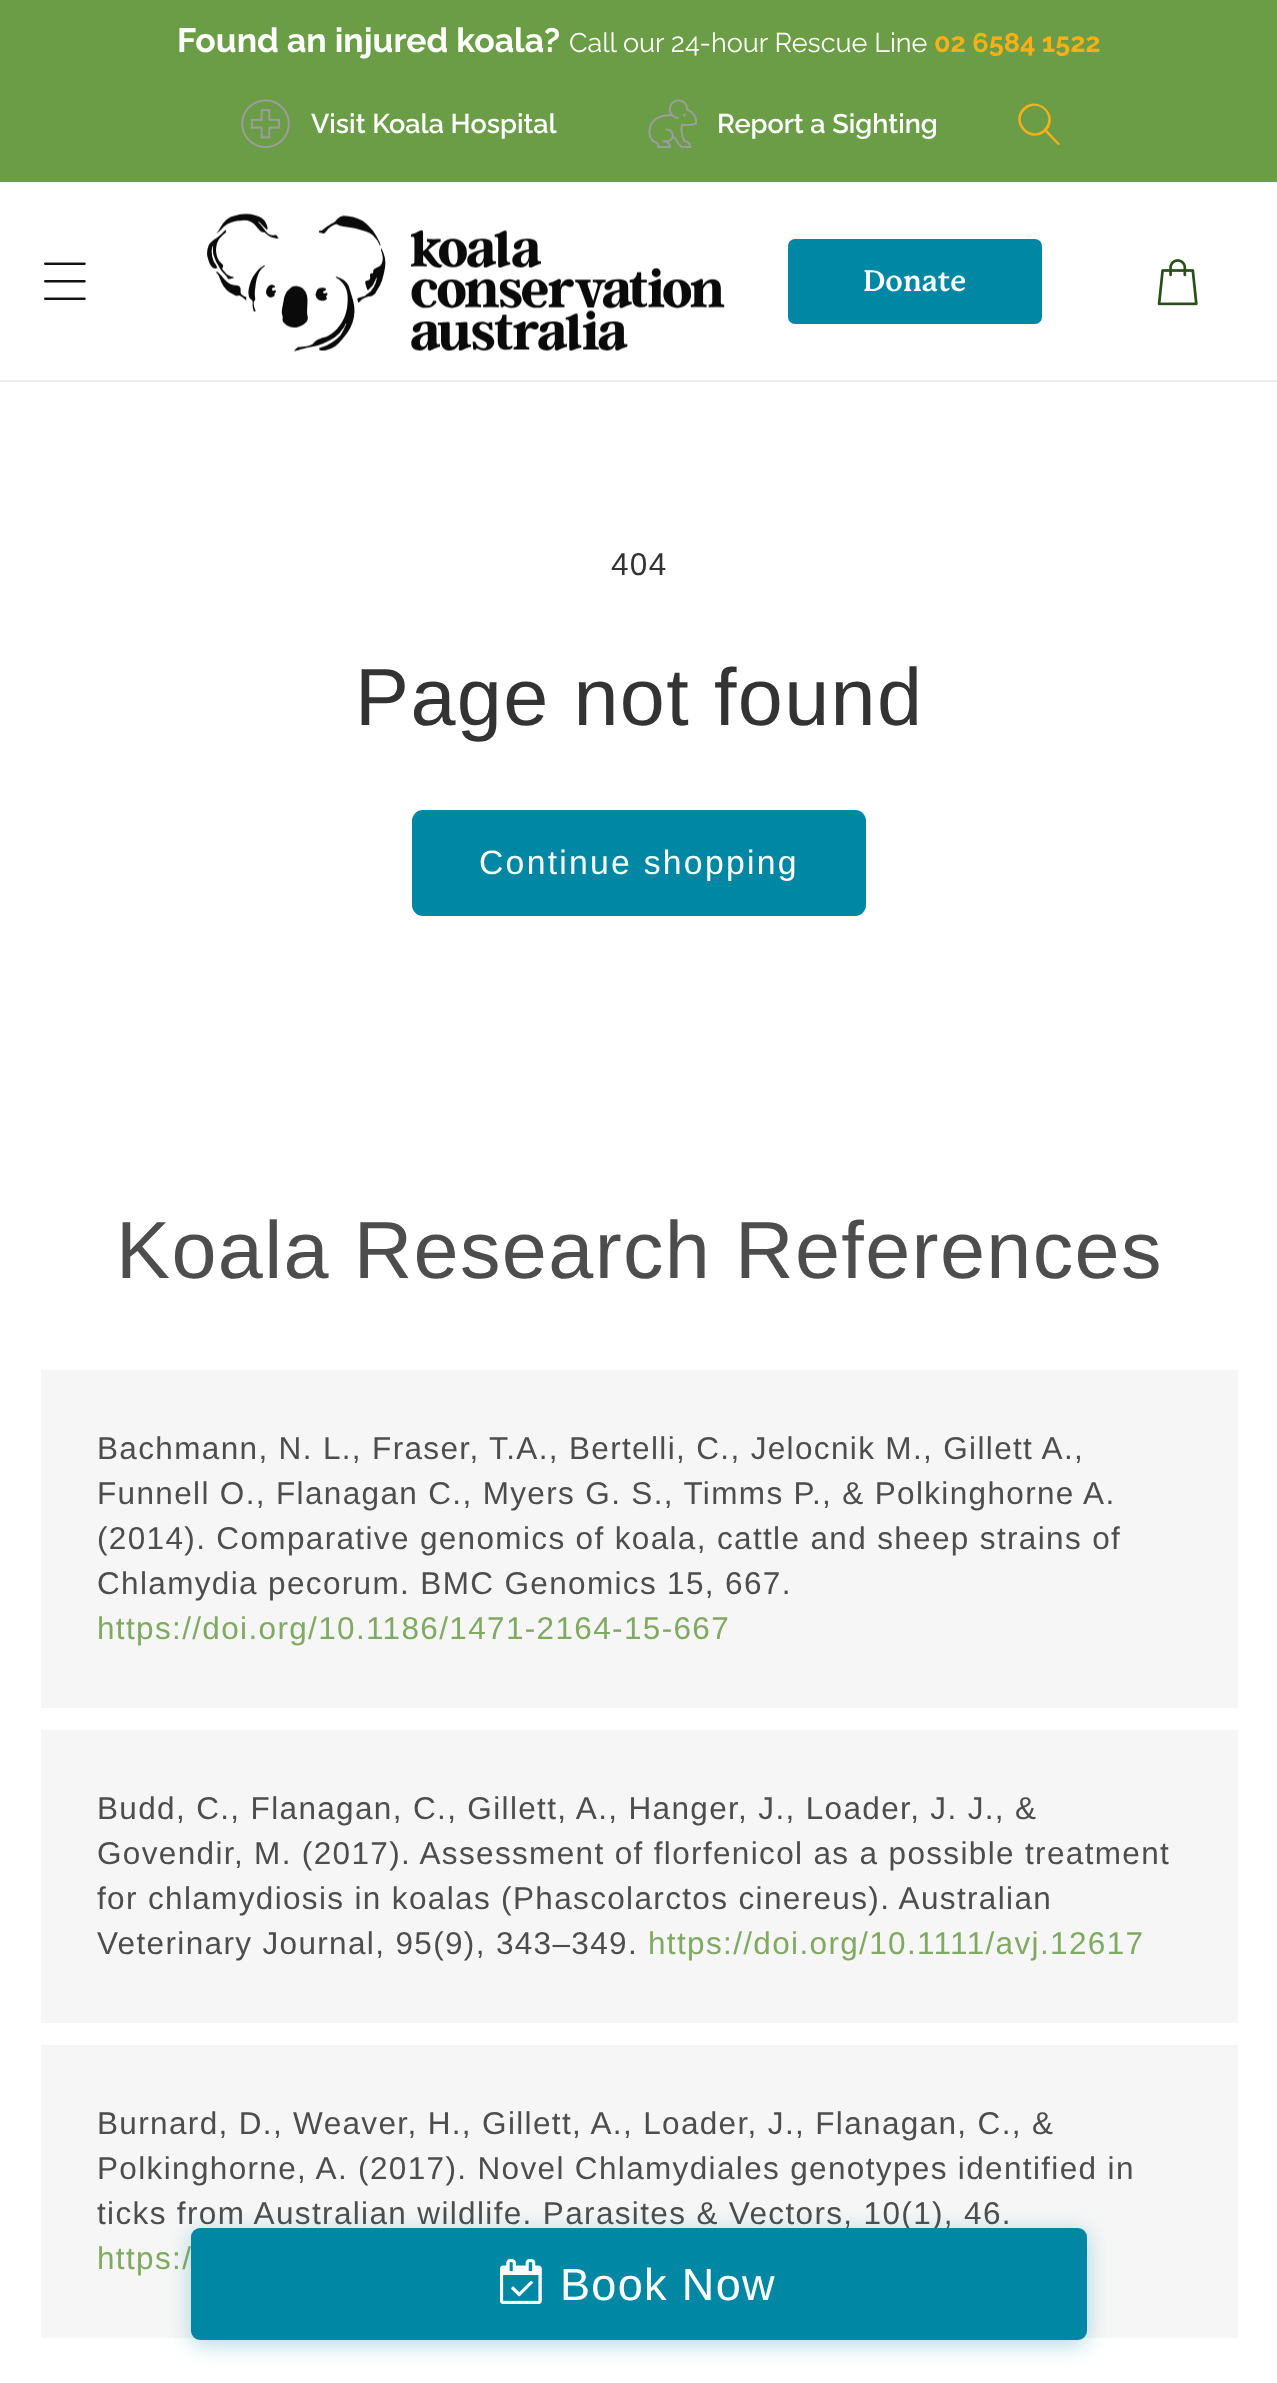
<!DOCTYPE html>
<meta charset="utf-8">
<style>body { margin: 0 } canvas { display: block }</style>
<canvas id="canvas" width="1277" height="2383"></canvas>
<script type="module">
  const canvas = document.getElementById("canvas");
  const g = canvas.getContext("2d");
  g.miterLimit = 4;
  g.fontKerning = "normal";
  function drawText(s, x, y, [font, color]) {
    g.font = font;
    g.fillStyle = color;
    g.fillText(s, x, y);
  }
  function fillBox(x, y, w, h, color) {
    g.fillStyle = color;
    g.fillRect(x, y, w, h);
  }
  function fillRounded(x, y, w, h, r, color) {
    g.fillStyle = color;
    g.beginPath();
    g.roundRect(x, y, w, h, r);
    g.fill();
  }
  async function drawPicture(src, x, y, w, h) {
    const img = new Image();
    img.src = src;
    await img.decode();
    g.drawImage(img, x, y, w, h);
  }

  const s1 = ["bold 33.75px Raleway", "#FFFFFF"];
  const s2 = ["27px Raleway", "#FFFFFF"];
  const s3 = ["bold 27px Raleway", "#FBAF17"];
  const s4 = ["600 27px Raleway", "#FFFFFF"];
  const s5 = ["bold 29px 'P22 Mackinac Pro'", "#FFFFFF"];
  const s6 = ["31.5px Liberation Sans", "#333333"];
  const s7 = ["81px Liberation Sans", "#333333"];
  const s8 = ["33.75px Liberation Sans", "#FFFFFF"];
  const s9 = ["81px Liberation Sans", "#4D4D4D"];
  const s10 = ["31.5px Liberation Sans", "#4D4D4D"];
  const s11 = ["31.5px Liberation Sans", "#80AA61"];
  const s12 = ["45px Liberation Sans", "#FFFFFF"];

  fillBox(0, 0, 1277, 2383, "#FFFFFF");
  fillBox(0, 0, 1277, 182, "#6B9D47");
  drawText("Found an injured koala?", 177, 52, s1);
  drawText("Call our 24-hour Rescue Line", 569, 52, s2);
  drawText("02 6584 1522", 934, 52, s3);
  await drawPicture("pic1.png", 241, 99, 49, 49);
  drawText("Visit Koala Hospital", 311, 133, s4);
  await drawPicture("pic2.png", 648, 99, 49, 49);
  drawText("Report a Sighting", 717, 133, s4);
  g.fillStyle = "#FBAF17";
  g.beginPath();
  g.moveTo(1044, 129);
  g.bezierCurveTo(1032, 142, 1012, 122, 1025, 110);
  g.bezierCurveTo(1038, 97, 1057, 116, 1044, 129);
  g.closePath();
  g.moveTo(1045, 132);
  g.bezierCurveTo(1029, 145, 1009, 122, 1023, 108);
  g.bezierCurveTo(1038, 94, 1060, 115, 1047, 130);
  g.lineTo(1060, 144);
  g.lineTo(1059, 145);
  g.bezierCurveTo(1058, 146, 1047, 133, 1045, 132);
  g.closePath();
  g.fill("evenodd");
  fillBox(0, 380, 1277, 2, "#ECECEC");
  await drawPicture("pic3.png", 44, 262, 42, 38);
  await drawPicture("pic4.png", 207, 213, 518, 139);
  fillRounded(788, 239, 254, 85, 7, "#0087A4");
  drawText("Donate", 863, 291, s5);
  await drawPicture("pic5.png", 1157, 259, 41, 47);
  g.letterSpacing = "1.35px";
  drawText("404", 611, 575, s6);
  drawText("Page not found", 355, 725, s7);
  fillRounded(412, 810, 454, 106, 11, "#0087A4");
  g.letterSpacing = "2.25px";
  drawText("Continue shopping", 479, 874, s8);
  g.letterSpacing = "1.35px";
  drawText("Koala Research References", 116, 1278, s9);
  fillBox(41, 1370, 1197, 338, "#F6F6F6");
  drawText("Bachmann, N. L., Fraser, T.A., Bertelli, C., Jelocnik M., Gillett A.,", 97, 1459, s10);
  drawText("Funnell O., Flanagan C., Myers G. S., Timms P., & Polkinghorne A.", 97, 1504, s10);
  drawText("(2014). Comparative genomics of koala, cattle and sheep strains of", 97, 1549, s10);
  drawText("Chlamydia pecorum. BMC Genomics 15, 667.", 97, 1594, s10);
  drawText("https://doi.org/10.1186/1471-2164-15-667", 97, 1639, s11);
  fillBox(41, 1730, 1197, 293, "#F6F6F6");
  drawText("Budd, C., Flanagan, C., Gillett, A., Hanger, J., Loader, J. J., &", 97, 1819, s10);
  drawText("Govendir, M. (2017). Assessment of florfenicol as a possible treatment", 97, 1864, s10);
  drawText("for chlamydiosis in koalas (Phascolarctos cinereus). Australian", 97, 1909, s10);
  drawText("Veterinary Journal, 95(9), 343–349.", 97, 1954, s10);
  drawText("https://doi.org/10.1111/avj.12617", 648, 1954, s11);
  fillBox(41, 2045, 1197, 293, "#F6F6F6");
  drawText("Burnard, D., Weaver, H., Gillett, A., Loader, J., Flanagan, C., &", 97, 2134, s10);
  drawText("Polkinghorne, A. (2017). Novel Chlamydiales genotypes identified in", 97, 2179, s10);
  drawText("ticks from Australian wildlife. Parasites & Vectors, 10(1), 46.", 97, 2224, s10);
  drawText("https:/", 97, 2269, s11);
  g.fillStyle = "rgba(0, 135, 164, 0.3)";
  g.filter = "blur(11px)";
  g.beginPath();
  g.roundRect(191, 2232, 896, 113, 9);
  g.fill();
  g.filter = "none";
  g.fillStyle = "#0087A4";
  g.beginPath();
  g.roundRect(192, 2229, 894, 110, 8);
  g.fill();
  g.strokeStyle = "#0087A4";
  g.lineWidth = 2;
  g.stroke();
  await drawPicture("pic6.png", 500, 2259, 42, 45);
  drawText("Book Now", 560, 2300, s12);
</script>
